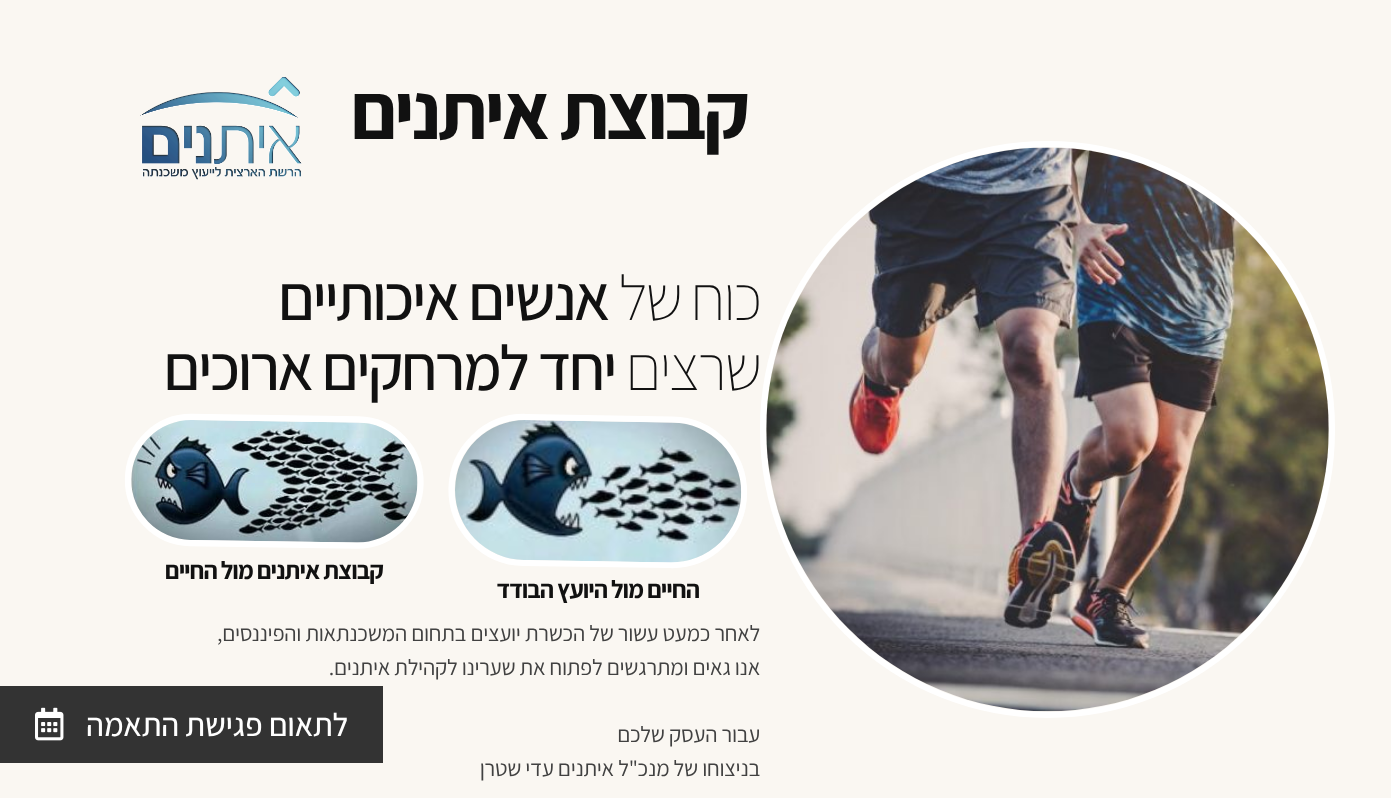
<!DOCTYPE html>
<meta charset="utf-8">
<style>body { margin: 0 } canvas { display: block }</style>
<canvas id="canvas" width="1391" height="798"></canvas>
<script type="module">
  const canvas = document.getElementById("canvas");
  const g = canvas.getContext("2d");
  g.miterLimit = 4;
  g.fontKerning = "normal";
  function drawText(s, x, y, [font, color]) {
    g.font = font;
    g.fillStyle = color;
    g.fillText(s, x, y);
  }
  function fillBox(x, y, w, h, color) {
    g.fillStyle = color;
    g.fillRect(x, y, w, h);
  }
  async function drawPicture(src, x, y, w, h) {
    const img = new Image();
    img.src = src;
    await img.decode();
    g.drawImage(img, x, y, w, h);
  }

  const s1 = ["bold 78.75px Assistant", "#111111"];
  const s2 = ["200 63.75px Assistant", "#111111"];
  const s3 = ["500 63.75px Assistant", "#111111"];
  const s4 = ["bold 25px Assistant", "#111111"];
  const s5 = ["22.5px Assistant", "#414141"];
  const s6 = ["500 32.5px Assistant", "#FFFFFF"];

  fillBox(0, 0, 1391, 798, "#FAF7F2");
  g.beginPath();
  g.roundRect(763, 144, 569, 571, 284.5);
  g.strokeStyle = "#FFFFFF";
  g.lineWidth = 6;
  g.stroke();
  await drawPicture("pic1.png", 766, 147, 563, 565);
  g.letterSpacing = "-3.25px";
  g.direction = "rtl";
  drawText("קבוצת איתנים", 747, 139, s1);
  await drawPicture("pic2.png", 140, 77, 162, 103);
  g.letterSpacing = "-2.6px";
  drawText("כוח של", 760, 320, s2);
  drawText("אנשים איכותיים", 608, 320, s3);
  drawText("שרצים", 760, 390, s2);
  drawText("יחד למרחקים ארוכים", 615, 390, s3);
  g.beginPath();
  g.moveTo(192, 417);
  g.lineTo(358.5, 419.5);
  g.bezierCurveTo(393, 420, 421, 448.5, 420.5, 483.5);
  g.bezierCurveTo(420, 518, 391, 546, 356.5, 545.5);
  g.lineTo(190, 543);
  g.bezierCurveTo(155.5, 542.5, 127.5, 513.5, 128, 479);
  g.bezierCurveTo(128.5, 444, 157.5, 416.5, 192, 417);
  g.closePath();
  g.lineWidth = 6.3;
  g.stroke();
  await drawPicture("pic3.png", 131, 420, 287, 123);
  g.letterSpacing = "-1px";
  drawText("קבוצת איתנים מול החיים", 383, 579, s4);
  g.beginPath();
  g.moveTo(526, 417);
  g.lineTo(672.5, 419.5);
  g.bezierCurveTo(712.5, 420, 744.5, 453, 744, 493.5);
  g.bezierCurveTo(743.5, 534, 710, 566, 670, 565);
  g.lineTo(523.5, 563);
  g.bezierCurveTo(483, 562, 451, 529, 451.5, 488.5);
  g.bezierCurveTo(452.5, 448.5, 485.5, 416, 526, 417);
  g.closePath();
  g.lineWidth = 6.2;
  g.stroke();
  await drawPicture("pic4.png", 455, 420, 287, 143);
  drawText("החיים מול היועץ הבודד", 699, 598, s4);
  g.letterSpacing = "-0.25px";
  drawText("לאחר כמעט עשור של הכשרת יועצים בתחום המשכנתאות והפיננסים,", 760, 641, s5);
  drawText("אנו גאים ומתרגשים לפתוח את שערינו לקהילת איתנים.", 760, 675, s5);
  drawText("עבור העסק שלכם", 760, 742, s5);
  drawText("בניצוחו של מנכ\"ל איתנים עדי שטרן", 760, 776, s5);
  fillBox(0, 686, 383, 77, "#333333");
  drawText("לתאום פגישת התאמה", 348, 736, s6);
  await drawPicture("pic5.png", 35, 707, 29, 34);
</script>
